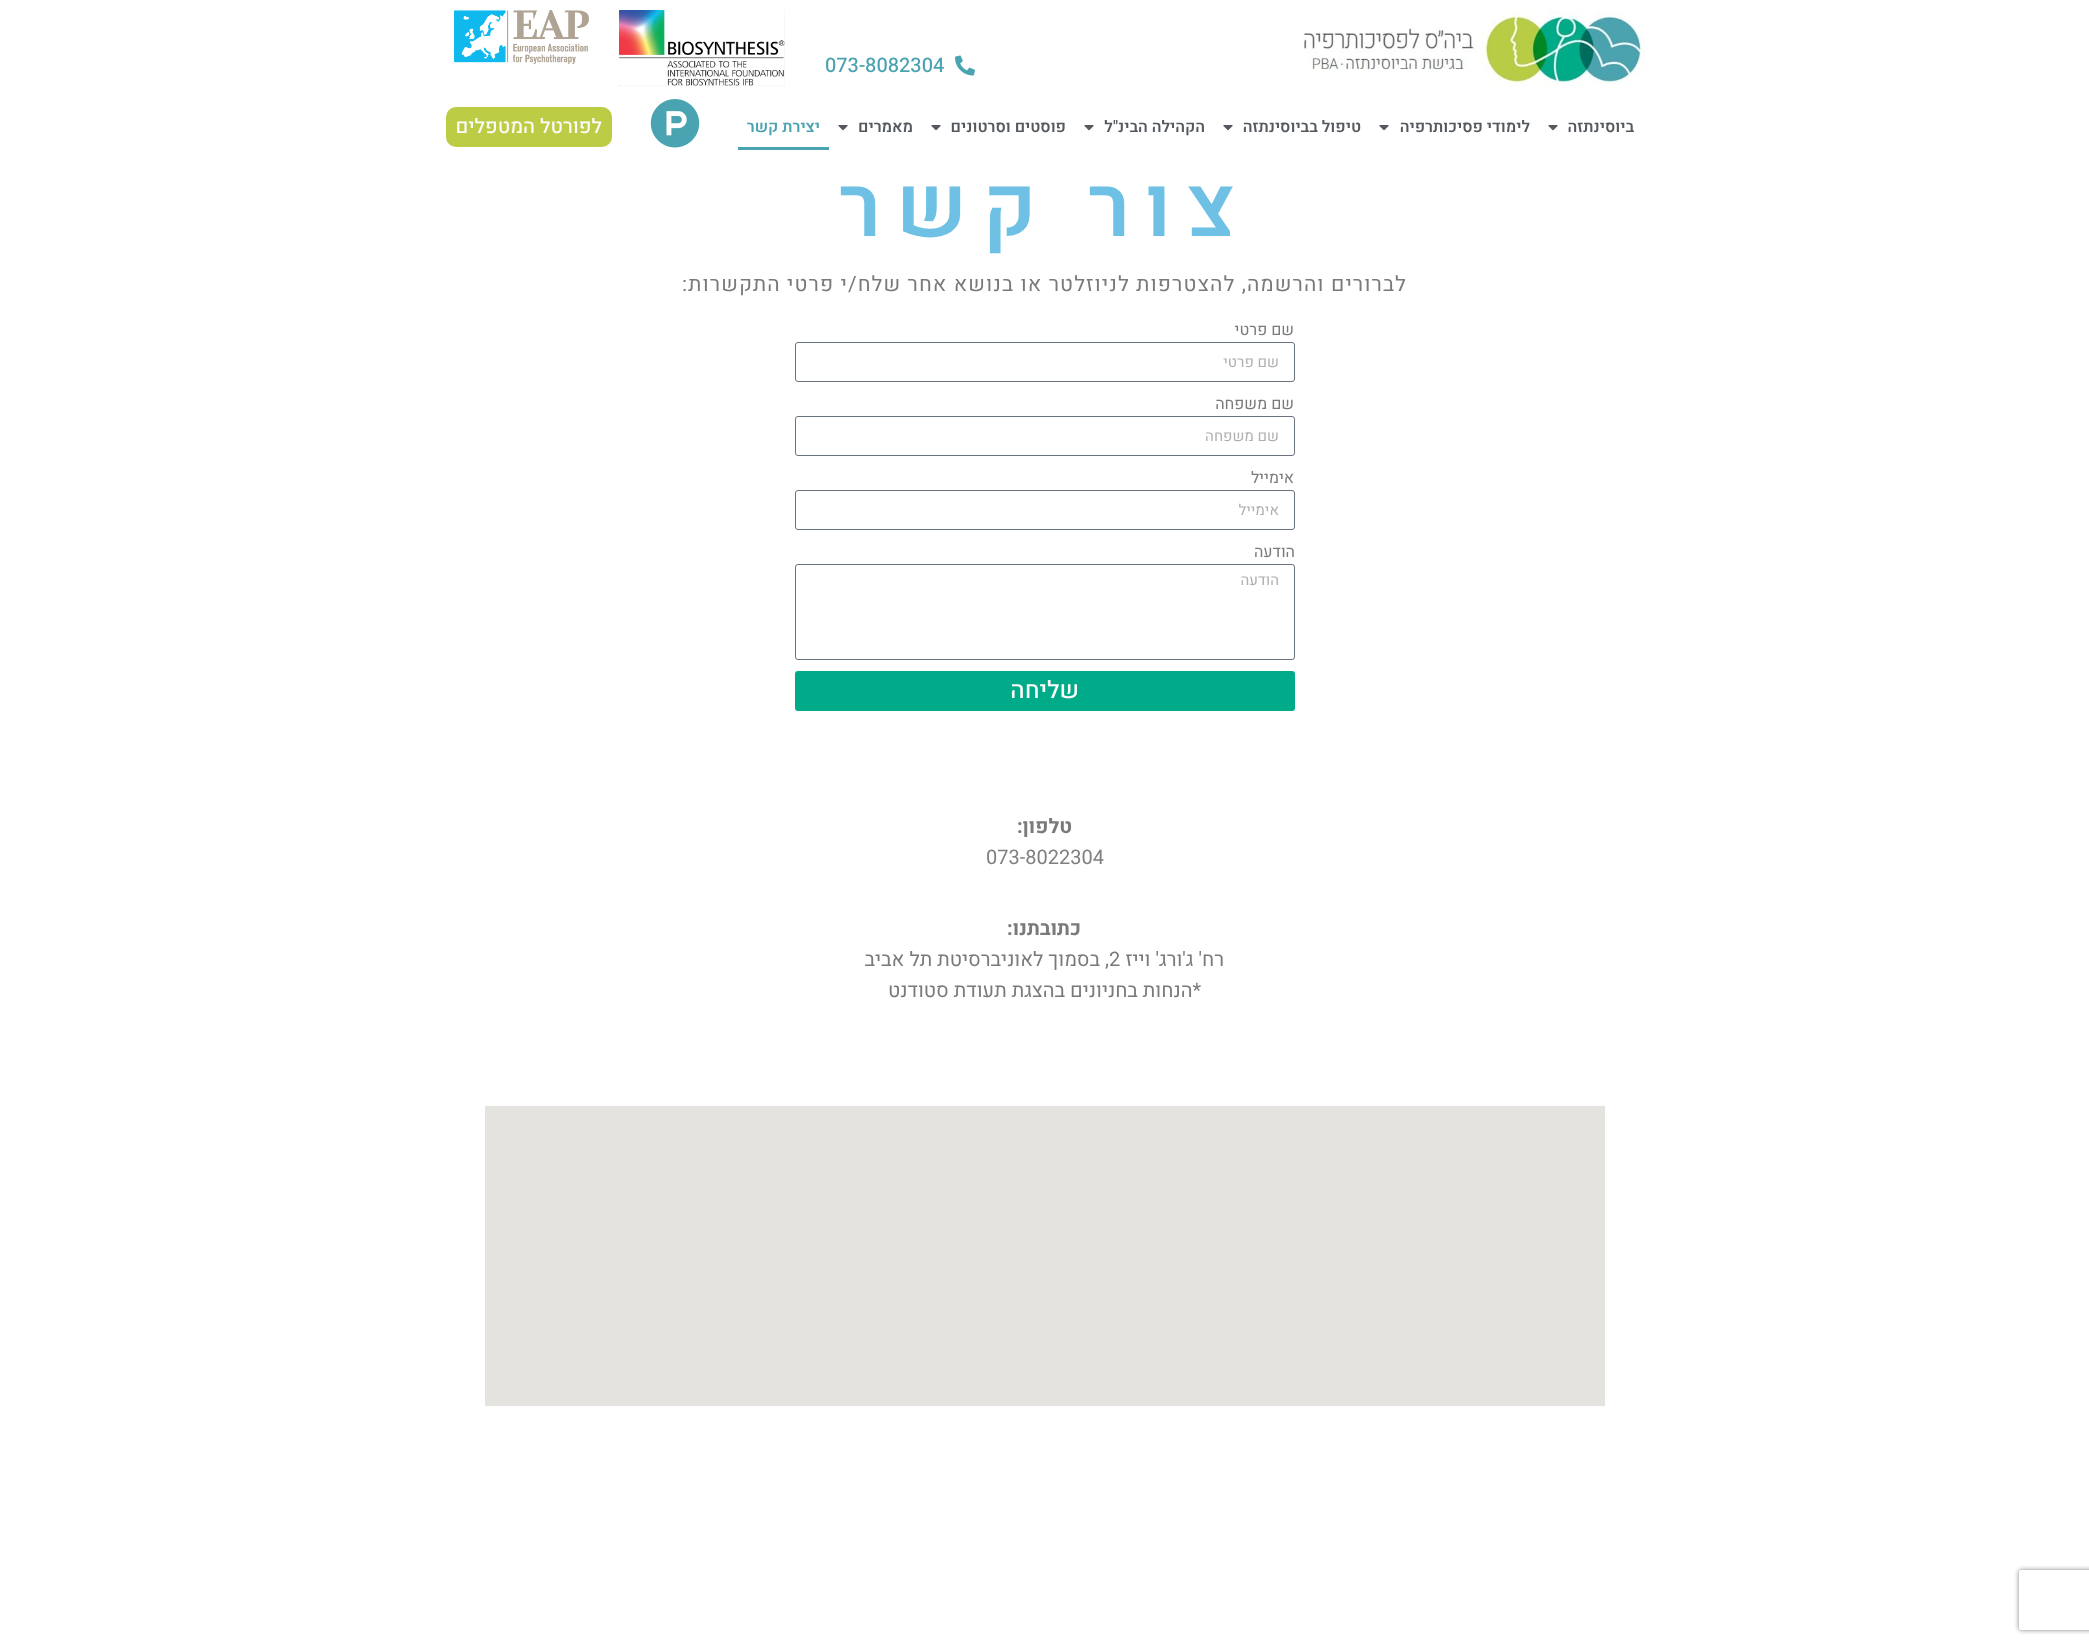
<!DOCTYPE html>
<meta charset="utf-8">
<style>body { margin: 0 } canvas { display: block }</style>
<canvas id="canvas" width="2089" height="1644"></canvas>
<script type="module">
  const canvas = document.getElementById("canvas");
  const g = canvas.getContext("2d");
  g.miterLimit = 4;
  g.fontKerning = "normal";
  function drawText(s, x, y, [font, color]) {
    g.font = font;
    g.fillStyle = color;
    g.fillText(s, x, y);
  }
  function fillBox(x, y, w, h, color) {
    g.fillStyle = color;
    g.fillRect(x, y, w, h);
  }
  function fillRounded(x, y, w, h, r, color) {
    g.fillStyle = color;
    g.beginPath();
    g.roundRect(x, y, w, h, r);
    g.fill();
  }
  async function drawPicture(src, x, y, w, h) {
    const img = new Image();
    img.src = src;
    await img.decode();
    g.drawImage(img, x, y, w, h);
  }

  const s1 = ["500 20px Heebo", "#4AA3B0"];
  const s2 = ["600 16px Heebo", "#54595F"];
  const s3 = ["600 16px Heebo", "#4AA3B0"];
  const s4 = ["500 20px Heebo", "#FBFBFB"];
  const s5 = ["600 85px Heebo", "#6EC1E4"];
  const s6 = ["21px Heebo", "#7A7A7A"];
  const s7 = ["16px Heebo", "#7A7A7A"];
  const s8 = ["15px Heebo", "#AFAFAF"];
  const s9 = ["500 24px Heebo", "#FBFBFB"];
  const s10 = ["bold 20px Heebo", "#7A7A7A"];
  const s11 = ["20px Heebo", "#808080"];
  const s12 = ["20px Heebo", "#7A7A7A"];

  fillBox(0, 0, 2089, 1644, "#FFFFFF");
  await drawPicture("pic1.png", 1303, 10, 342, 76);
  await drawPicture("pic2.png", 955, 55, 20, 21);
  drawText("073-8082304", 825, 72, s1);
  await drawPicture("pic3.png", 619, 10, 166, 76);
  await drawPicture("pic4.png", 454, 10, 135, 54);
  g.direction = "rtl";
  drawText("ביוסינתזה", 1634, 132, s2);
  await drawPicture("pic5.png", 1548, 125, 10, 6);
  drawText("לימודי פסיכותרפיה", 1530, 132, s2);
  await drawPicture("pic5.png", 1379, 125, 10, 6);
  drawText("טיפול בביוסינתזה", 1361, 132, s2);
  await drawPicture("pic5.png", 1223, 125, 10, 6);
  drawText("הקהילה הבינ\"ל", 1205, 132, s2);
  await drawPicture("pic5.png", 1084, 125, 10, 6);
  drawText("פוסטים וסרטונים", 1066, 132, s2);
  await drawPicture("pic5.png", 931, 125, 10, 6);
  drawText("מאמרים", 913, 132, s2);
  await drawPicture("pic5.png", 838, 125, 10, 6);
  drawText("יצירת קשר", 820, 132, s3);
  fillBox(738, 147, 91, 3, "#4AA3B0");
  await drawPicture("pic6.png", 650, 99, 50, 49);
  fillRounded(446, 107, 166, 40, 10, "#BCCC44");
  drawText("לפורטל המטפלים", 602, 133, s4);
  g.letterSpacing = "15px";
  drawText("צור קשר", 1250, 236, s5);
  g.letterSpacing = "1.1px";
  drawText("לברורים והרשמה, להצטרפות לניוזלטר או בנושא אחר שלח/י פרטי התקשרות:", 1407, 291, s6);
  g.letterSpacing = "0px";
  drawText("שם פרטי", 1294, 335, s7);
  g.beginPath();
  g.roundRect(795.5, 342.5, 499, 39, 2.5);
  g.strokeStyle = "#69727D";
  g.stroke();
  drawText("שם פרטי", 1279, 367, s8);
  drawText("שם משפחה", 1294, 409, s7);
  g.beginPath();
  g.roundRect(795.5, 416.5, 499, 39, 2.5);
  g.stroke();
  drawText("שם משפחה", 1279, 441, s8);
  drawText("אימייל", 1294, 483, s7);
  g.beginPath();
  g.roundRect(795.5, 490.5, 499, 39, 2.5);
  g.stroke();
  drawText("אימייל", 1279, 515, s8);
  drawText("הודעה", 1295, 557, s7);
  g.beginPath();
  g.roundRect(795.5, 564.5, 499, 95, 2.5);
  g.stroke();
  drawText("הודעה", 1279, 585, s8);
  fillRounded(795, 671, 500, 40, 3, "#00AB89");
  drawText("שליחה", 1079, 698, s9);
  g.save();
  g.beginPath();
  g.moveTo(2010, 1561);
  g.lineTo(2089, 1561);
  g.lineTo(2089, 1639);
  g.lineTo(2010, 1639);
  g.closePath();
  g.moveTo(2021, 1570);
  g.lineTo(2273, 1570);
  g.bezierCurveTo(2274, 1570, 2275, 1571, 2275, 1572);
  g.lineTo(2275, 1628);
  g.bezierCurveTo(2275, 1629, 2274, 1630, 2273, 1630);
  g.lineTo(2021, 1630);
  g.bezierCurveTo(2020, 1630, 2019, 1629, 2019, 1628);
  g.lineTo(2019, 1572);
  g.bezierCurveTo(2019, 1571, 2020, 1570, 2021, 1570);
  g.closePath();
  g.clip("evenodd");
  g.fillStyle = "#808080";
  g.filter = "blur(2.5px)";
  g.beginPath();
  g.roundRect(2019, 1570, 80, 60, 2);
  g.fill();
  g.filter = "none";
  g.restore();
  drawText("טלפון:", 1072, 833, s10);
  g.direction = "ltr";
  drawText("073-8022304", 986, 864, s11);
  g.direction = "rtl";
  drawText("כתובתנו:", 1081, 935, s10);
  drawText("רח' ג'ורג' וייז", 1224, 966, s12);
  g.direction = "ltr";
  drawText("2", 1109, 966, s12);
  g.direction = "rtl";
  drawText(", בסמוך לאוניברסיטת תל אביב", 1109, 966, s12);
  drawText("*הנחות בחניונים בהצגת תעודת סטודנט", 1201, 997, s12);
  fillBox(485, 1106, 1120, 300, "#E5E3DF");
</script>
